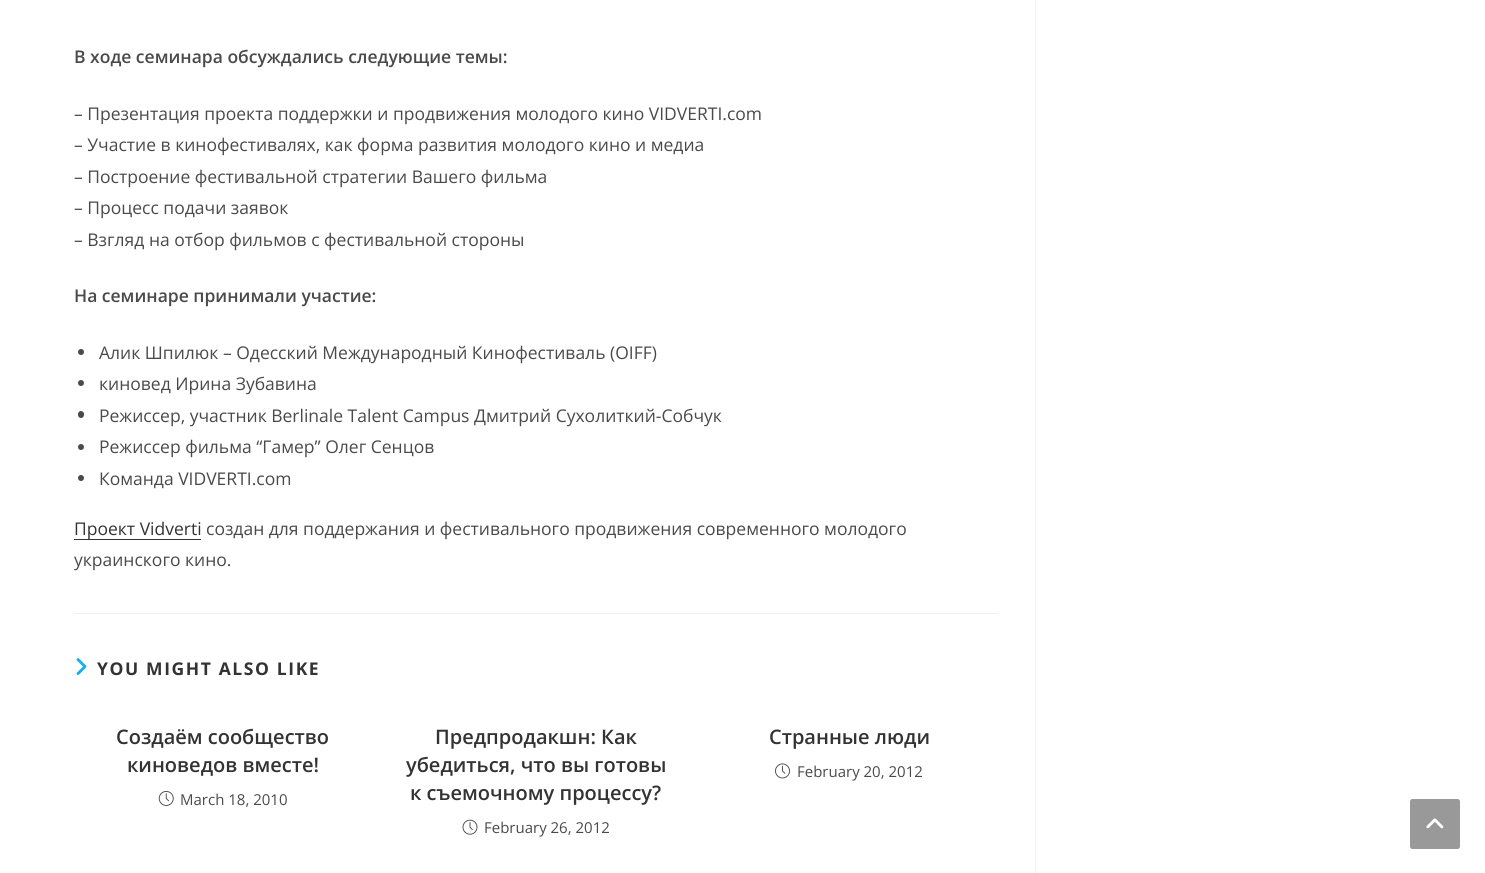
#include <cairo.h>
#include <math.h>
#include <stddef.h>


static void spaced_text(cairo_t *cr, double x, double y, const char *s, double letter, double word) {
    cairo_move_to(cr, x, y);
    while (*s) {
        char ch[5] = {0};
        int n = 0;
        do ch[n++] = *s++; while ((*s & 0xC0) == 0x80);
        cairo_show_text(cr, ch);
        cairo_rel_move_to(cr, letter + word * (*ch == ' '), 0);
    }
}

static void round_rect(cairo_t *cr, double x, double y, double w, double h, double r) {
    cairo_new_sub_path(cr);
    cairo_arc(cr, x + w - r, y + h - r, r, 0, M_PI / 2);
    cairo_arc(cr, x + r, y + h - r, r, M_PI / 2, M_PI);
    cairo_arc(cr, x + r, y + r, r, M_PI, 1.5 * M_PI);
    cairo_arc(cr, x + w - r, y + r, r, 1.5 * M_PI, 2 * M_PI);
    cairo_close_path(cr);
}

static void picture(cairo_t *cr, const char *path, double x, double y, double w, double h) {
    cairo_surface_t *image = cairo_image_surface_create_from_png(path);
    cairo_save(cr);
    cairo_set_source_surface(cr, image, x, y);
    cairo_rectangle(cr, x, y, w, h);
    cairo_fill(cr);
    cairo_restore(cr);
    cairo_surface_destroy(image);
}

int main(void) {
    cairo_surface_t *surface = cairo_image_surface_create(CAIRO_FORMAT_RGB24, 1485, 873);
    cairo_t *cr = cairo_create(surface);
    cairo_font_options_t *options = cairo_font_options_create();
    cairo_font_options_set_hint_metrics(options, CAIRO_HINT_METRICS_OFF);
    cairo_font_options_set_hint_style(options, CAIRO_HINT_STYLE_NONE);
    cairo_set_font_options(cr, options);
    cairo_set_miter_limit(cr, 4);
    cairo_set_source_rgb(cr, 1, 1, 1);
    cairo_paint(cr);
    cairo_set_source_rgb(cr, 0.945, 0.945, 0.945);
    cairo_rectangle(cr, 1035, 0, 1, 873);
    cairo_fill(cr);
    cairo_select_font_face(cr, "Open Sans SemiBold", CAIRO_FONT_SLANT_NORMAL, CAIRO_FONT_WEIGHT_NORMAL);
    cairo_set_font_size(cr, 17.5);
    cairo_set_source_rgb(cr, 0.29, 0.29, 0.29);
    cairo_move_to(cr, 74, 63);
    cairo_show_text(cr, "В ходе семинара обсуждались следующие темы:");
    cairo_select_font_face(cr, "Open Sans", CAIRO_FONT_SLANT_NORMAL, CAIRO_FONT_WEIGHT_NORMAL);
    cairo_move_to(cr, 74, 120);
    cairo_show_text(cr, "– Презентация проекта поддержки и продвижения молодого кино VIDVERTI.com");
    cairo_move_to(cr, 74, 151);
    cairo_show_text(cr, "– Участие в кинофестивалях, как форма развития молодого кино и медиа");
    cairo_move_to(cr, 74, 183);
    cairo_show_text(cr, "– Построение фестивальной стратегии Вашего фильма");
    cairo_move_to(cr, 74, 214);
    cairo_show_text(cr, "– Процесс подачи заявок");
    cairo_move_to(cr, 74, 246);
    cairo_show_text(cr, "– Взгляд на отбор фильмов с фестивальной стороны");
    cairo_select_font_face(cr, "Open Sans SemiBold", CAIRO_FONT_SLANT_NORMAL, CAIRO_FONT_WEIGHT_NORMAL);
    cairo_move_to(cr, 74, 302);
    cairo_show_text(cr, "На семинаре принимали участие:");
    cairo_new_path(cr);
    cairo_arc(cr, 81, 352, 3, 0, 2 * M_PI);
    cairo_fill(cr);
    cairo_select_font_face(cr, "Open Sans", CAIRO_FONT_SLANT_NORMAL, CAIRO_FONT_WEIGHT_NORMAL);
    cairo_move_to(cr, 99, 359);
    cairo_show_text(cr, "Алик Шпилюк – Одесский Международный Кинофестиваль (OIFF)");
    cairo_new_path(cr);
    cairo_arc(cr, 81, 383, 3, 0, 2 * M_PI);
    cairo_fill(cr);
    cairo_move_to(cr, 99, 390);
    cairo_show_text(cr, "киновед Ирина Зубавина");
    round_rect(cr, 78, 411, 6, 7, 3);
    cairo_fill(cr);
    cairo_move_to(cr, 99, 422);
    cairo_show_text(cr, "Режиссер, участник Berlinale Talent Campus Дмитрий Сухолиткий-Собчук");
    cairo_new_path(cr);
    cairo_arc(cr, 81, 447, 3, 0, 2 * M_PI);
    cairo_fill(cr);
    cairo_move_to(cr, 99, 453);
    cairo_show_text(cr, "Режиссер фильма “Гамер” Олег Сенцов");
    cairo_new_path(cr);
    cairo_arc(cr, 81, 478, 3, 0, 2 * M_PI);
    cairo_fill(cr);
    cairo_move_to(cr, 99, 485);
    cairo_show_text(cr, "Команда VIDVERTI.com");
    cairo_set_source_rgb(cr, 0.2, 0.2, 0.2);
    cairo_rectangle(cr, 74, 539, 127, 1);
    cairo_fill(cr);
    cairo_move_to(cr, 74, 535);
    cairo_show_text(cr, "Проект Vidverti");
    cairo_set_source_rgb(cr, 0.29, 0.29, 0.29);
    cairo_move_to(cr, 206, 535);
    cairo_show_text(cr, "создан для поддержания и фестивального продвижения современного молодого");
    cairo_move_to(cr, 74, 566);
    cairo_show_text(cr, "украинского кино.");
    cairo_set_source_rgb(cr, 0.945, 0.945, 0.945);
    cairo_rectangle(cr, 74, 613, 924, 1);
    cairo_fill(cr);
    picture(cr, "img1.png", 76, 658, 11, 17);
    cairo_select_font_face(cr, "Open Sans", CAIRO_FONT_SLANT_NORMAL, CAIRO_FONT_WEIGHT_BOLD);
    cairo_set_source_rgb(cr, 0.2, 0.2, 0.2);
    spaced_text(cr, 97, 675, "YOU MIGHT ALSO LIKE", 1.6, 0);
    cairo_select_font_face(cr, "Open Sans SemiBold", CAIRO_FONT_SLANT_NORMAL, CAIRO_FONT_WEIGHT_NORMAL);
    cairo_set_font_size(cr, 20);
    cairo_move_to(cr, 116, 744);
    cairo_show_text(cr, "Создаём сообщество");
    cairo_move_to(cr, 127, 772);
    cairo_show_text(cr, "киноведов вместе!");
    picture(cr, "img2.png", 158, 790, 16, 16);
    cairo_select_font_face(cr, "Open Sans", CAIRO_FONT_SLANT_NORMAL, CAIRO_FONT_WEIGHT_NORMAL);
    cairo_set_font_size(cr, 15);
    cairo_set_source_rgb(cr, 0.29, 0.29, 0.29);
    cairo_move_to(cr, 180, 805);
    cairo_show_text(cr, "March 18, 2010");
    cairo_select_font_face(cr, "Open Sans SemiBold", CAIRO_FONT_SLANT_NORMAL, CAIRO_FONT_WEIGHT_NORMAL);
    cairo_set_font_size(cr, 20);
    cairo_set_source_rgb(cr, 0.2, 0.2, 0.2);
    cairo_move_to(cr, 435, 744);
    cairo_show_text(cr, "Предпродакшн: Как");
    cairo_move_to(cr, 406, 772);
    cairo_show_text(cr, "убедиться, что вы готовы");
    cairo_move_to(cr, 410, 800);
    cairo_show_text(cr, "к съемочному процессу?");
    picture(cr, "img3.png", 462, 819, 16, 16);
    cairo_select_font_face(cr, "Open Sans", CAIRO_FONT_SLANT_NORMAL, CAIRO_FONT_WEIGHT_NORMAL);
    cairo_set_font_size(cr, 15);
    cairo_set_source_rgb(cr, 0.29, 0.29, 0.29);
    cairo_move_to(cr, 484, 833);
    cairo_show_text(cr, "February 26, 2012");
    cairo_select_font_face(cr, "Open Sans SemiBold", CAIRO_FONT_SLANT_NORMAL, CAIRO_FONT_WEIGHT_NORMAL);
    cairo_set_font_size(cr, 20);
    cairo_set_source_rgb(cr, 0.2, 0.2, 0.2);
    cairo_move_to(cr, 769, 744);
    cairo_show_text(cr, "Странные люди");
    picture(cr, "img4.png", 775, 763, 15, 16);
    cairo_select_font_face(cr, "Open Sans", CAIRO_FONT_SLANT_NORMAL, CAIRO_FONT_WEIGHT_NORMAL);
    cairo_set_font_size(cr, 15);
    cairo_set_source_rgb(cr, 0.29, 0.29, 0.29);
    cairo_move_to(cr, 797, 777);
    cairo_show_text(cr, "February 20, 2012");
    cairo_set_source_rgb(cr, 0.6, 0.6, 0.6);
    round_rect(cr, 1410, 799, 50, 50, 2.5);
    cairo_fill(cr);
    picture(cr, "img5.png", 1426, 818, 18, 11);
    cairo_surface_write_to_png(surface, "page.png");
    cairo_font_options_destroy(options);
    cairo_destroy(cr);
    cairo_surface_destroy(surface);
    return 0;
}
